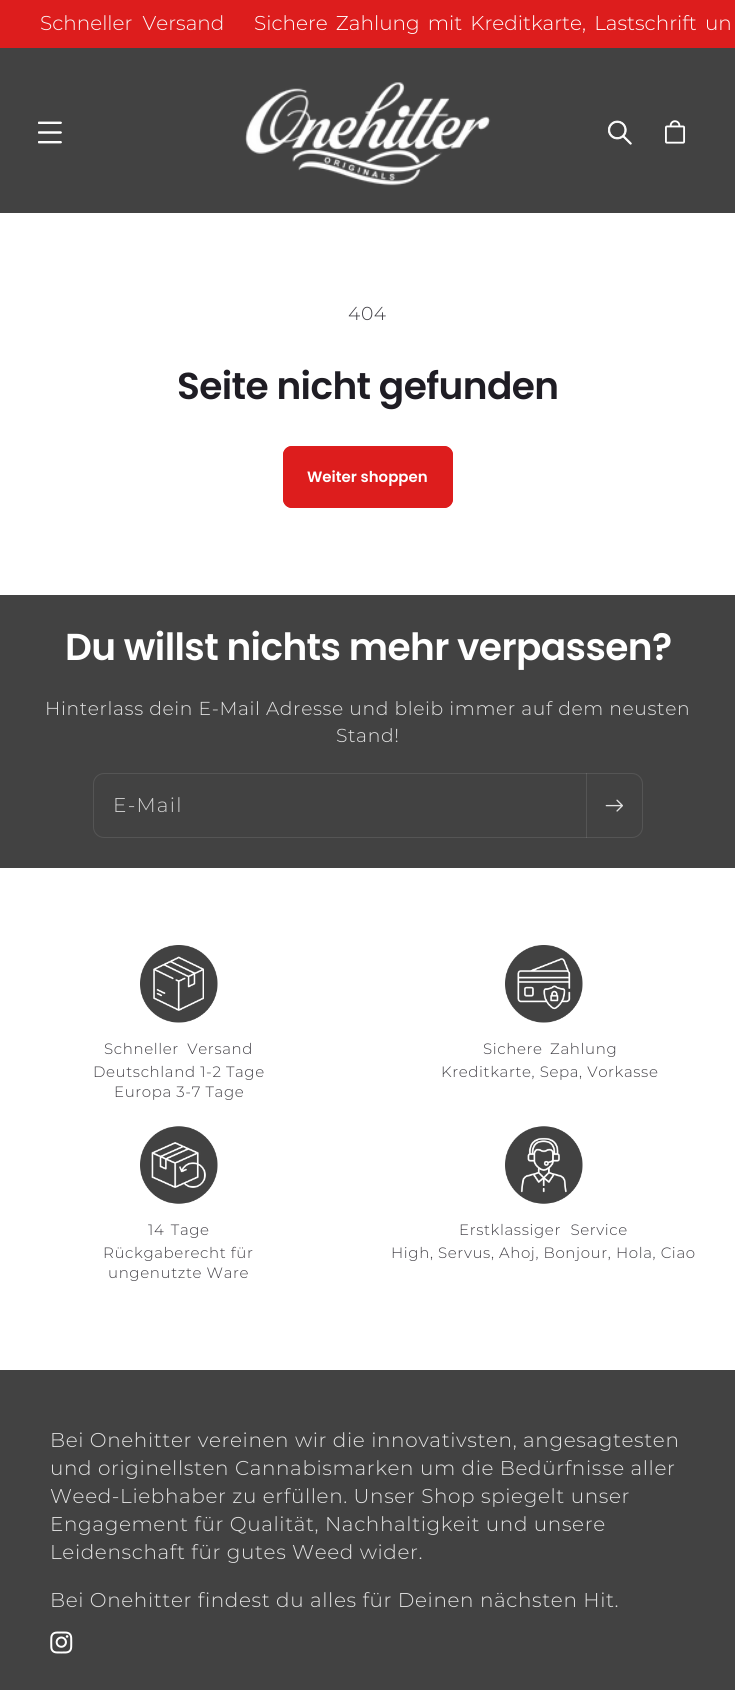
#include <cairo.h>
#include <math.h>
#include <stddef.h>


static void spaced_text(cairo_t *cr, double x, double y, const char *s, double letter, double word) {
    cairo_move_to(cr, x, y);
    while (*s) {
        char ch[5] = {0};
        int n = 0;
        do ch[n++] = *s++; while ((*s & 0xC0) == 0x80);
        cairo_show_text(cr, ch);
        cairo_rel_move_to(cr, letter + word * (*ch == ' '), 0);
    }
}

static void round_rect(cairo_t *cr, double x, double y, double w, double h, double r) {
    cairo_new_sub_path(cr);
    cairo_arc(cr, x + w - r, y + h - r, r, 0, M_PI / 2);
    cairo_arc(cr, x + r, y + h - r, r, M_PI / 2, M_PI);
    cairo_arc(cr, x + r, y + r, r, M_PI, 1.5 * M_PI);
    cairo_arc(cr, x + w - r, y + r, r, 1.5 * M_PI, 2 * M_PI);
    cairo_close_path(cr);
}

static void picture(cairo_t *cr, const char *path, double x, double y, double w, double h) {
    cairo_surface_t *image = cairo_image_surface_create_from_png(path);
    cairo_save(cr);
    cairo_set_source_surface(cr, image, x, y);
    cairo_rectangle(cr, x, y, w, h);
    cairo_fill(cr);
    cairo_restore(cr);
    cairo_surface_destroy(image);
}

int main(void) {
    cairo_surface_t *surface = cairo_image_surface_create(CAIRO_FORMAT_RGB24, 735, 1690);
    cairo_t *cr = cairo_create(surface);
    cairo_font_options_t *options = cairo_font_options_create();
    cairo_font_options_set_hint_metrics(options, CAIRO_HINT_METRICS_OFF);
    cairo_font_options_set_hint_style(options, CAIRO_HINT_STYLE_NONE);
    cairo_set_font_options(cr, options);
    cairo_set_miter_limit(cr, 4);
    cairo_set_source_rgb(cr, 1, 1, 1);
    cairo_paint(cr);
    cairo_set_source_rgb(cr, 0.867, 0.114, 0.114);
    cairo_rectangle(cr, 0, 0, 735, 48);
    cairo_fill(cr);
    cairo_select_font_face(cr, "Montserrat Light", CAIRO_FONT_SLANT_NORMAL, CAIRO_FONT_WEIGHT_NORMAL);
    cairo_set_font_size(cr, 20);
    cairo_set_source_rgb(cr, 0.976, 0.976, 0.976);
    spaced_text(cr, 40, 30, "Schneller Versand", 0, 5);
    cairo_set_source_rgb(cr, 1, 1, 1);
    spaced_text(cr, 254, 30, "Sichere Zahlung mit Kreditkarte, Lastschrift un", 0, 3);
    cairo_set_source_rgb(cr, 0.259, 0.259, 0.259);
    cairo_rectangle(cr, 0, 48, 735, 165);
    cairo_fill(cr);
    picture(cr, "img1.png", 38, 121, 24, 23);
    picture(cr, "img2.png", 245, 82, 246, 104);
    picture(cr, "img3.png", 608, 120, 24, 25);
    picture(cr, "img4.png", 665, 120, 21, 24);
    cairo_set_font_size(cr, 18.75);
    cairo_set_source_rgb(cr, 0.255, 0.247, 0.271);
    spaced_text(cr, 348, 320, "404", 0.62, 0);
    cairo_select_font_face(cr, "Poppins SemiBold", CAIRO_FONT_SLANT_NORMAL, CAIRO_FONT_WEIGHT_NORMAL);
    cairo_set_font_size(cr, 37.5);
    cairo_set_source_rgb(cr, 0.122, 0.114, 0.141);
    spaced_text(cr, 177, 399, "Seite nicht gefunden", -0.6, 0);
    cairo_set_source_rgb(cr, 0.867, 0.114, 0.114);
    round_rect(cr, 283, 446, 170, 62, 9);
    cairo_fill(cr);
    round_rect(cr, 283.5, 446.5, 169, 61, 8.5);
    cairo_set_line_width(cr, 1);
    cairo_stroke(cr);
    cairo_set_font_size(cr, 15);
    cairo_set_source_rgb(cr, 1, 1, 1);
    cairo_move_to(cr, 307, 482);
    cairo_show_text(cr, "Weiter shoppen");
    cairo_set_source_rgb(cr, 0.259, 0.259, 0.259);
    cairo_rectangle(cr, 0, 595, 735, 273);
    cairo_fill(cr);
    cairo_set_font_size(cr, 37.5);
    cairo_set_source_rgb(cr, 1, 1, 1);
    spaced_text(cr, 65, 660, "Du willst nichts mehr verpassen?", -0.6, 0);
    cairo_select_font_face(cr, "Montserrat Light", CAIRO_FONT_SLANT_NORMAL, CAIRO_FONT_WEIGHT_NORMAL);
    cairo_set_font_size(cr, 18.75);
    cairo_set_source_rgb(cr, 0.89, 0.89, 0.89);
    spaced_text(cr, 45, 715, "Hinterlass dein E-Mail Adresse und bleib immer auf dem neusten", 0.62, 0);
    spaced_text(cr, 336, 742, "Stand!", 0.62, 0);
    round_rect(cr, 93.5, 773.5, 549, 64, 10.5);
    cairo_set_source_rgb(cr, 0.333, 0.333, 0.333);
    cairo_stroke(cr);
    cairo_set_font_size(cr, 20);
    cairo_set_source_rgb(cr, 0.816, 0.816, 0.816);
    spaced_text(cr, 113, 812, "E-Mail", 1.25, 0);
    cairo_set_source_rgba(cr, 1, 1, 1, 0.1);
    cairo_rectangle(cr, 586, 773, 1, 65);
    cairo_fill(cr);
    picture(cr, "img5.png", 605, 799, 18, 13);
    picture(cr, "img6.png", 140, 945, 78, 78);
    cairo_set_font_size(cr, 15);
    cairo_set_source_rgb(cr, 0.255, 0.247, 0.271);
    spaced_text(cr, 104, 1054, "Schneller Versand", 0.62, 4);
    spaced_text(cr, 93, 1077, "Deutschland 1-2 Tage", 0.62, 0);
    spaced_text(cr, 114, 1097, "Europa 3-7 Tage", 0.62, 0);
    picture(cr, "img7.png", 505, 945, 78, 78);
    spaced_text(cr, 483, 1054, "Sichere Zahlung", 0.62, 3);
    spaced_text(cr, 441, 1077, "Kreditkarte, Sepa, Vorkasse", 0.62, 0);
    picture(cr, "img8.png", 140, 1126, 78, 78);
    spaced_text(cr, 148, 1235, "14 Tage", 0.62, 2);
    spaced_text(cr, 103, 1258, "Rückgaberecht für", 0.62, 0);
    spaced_text(cr, 108, 1278, "ungenutzte Ware", 0.62, 0);
    picture(cr, "img9.png", 505, 1126, 78, 78);
    spaced_text(cr, 459, 1235, "Erstklassiger Service", 0.62, 5);
    spaced_text(cr, 391, 1258, "High, Servus, Ahoj, Bonjour, Hola, Ciao", 0.62, 0);
    cairo_set_source_rgb(cr, 0.259, 0.259, 0.259);
    cairo_rectangle(cr, 0, 1370, 735, 320);
    cairo_fill(cr);
    cairo_set_font_size(cr, 20);
    cairo_set_source_rgb(cr, 0.89, 0.89, 0.89);
    spaced_text(cr, 50, 1447, "Bei Onehitter vereinen wir die innovativsten, angesagtesten", 0.62, 0);
    spaced_text(cr, 50, 1475, "und originellsten Cannabismarken um die Bedürfnisse aller", 0.62, 0);
    spaced_text(cr, 50, 1503, "Weed-Liebhaber zu erfüllen. Unser Shop spiegelt unser", 0.62, 0);
    spaced_text(cr, 50, 1531, "Engagement für Qualität, Nachhaltigkeit und unsere", 0.62, 0);
    spaced_text(cr, 50, 1559, "Leidenschaft für gutes Weed wider.", 0.62, 0);
    spaced_text(cr, 50, 1607, "Bei Onehitter findest du alles für Deinen nächsten Hit.", 0.62, 0);
    picture(cr, "img10.png", 50, 1631, 23, 23);
    cairo_surface_write_to_png(surface, "page.png");
    cairo_font_options_destroy(options);
    cairo_destroy(cr);
    cairo_surface_destroy(surface);
    return 0;
}
